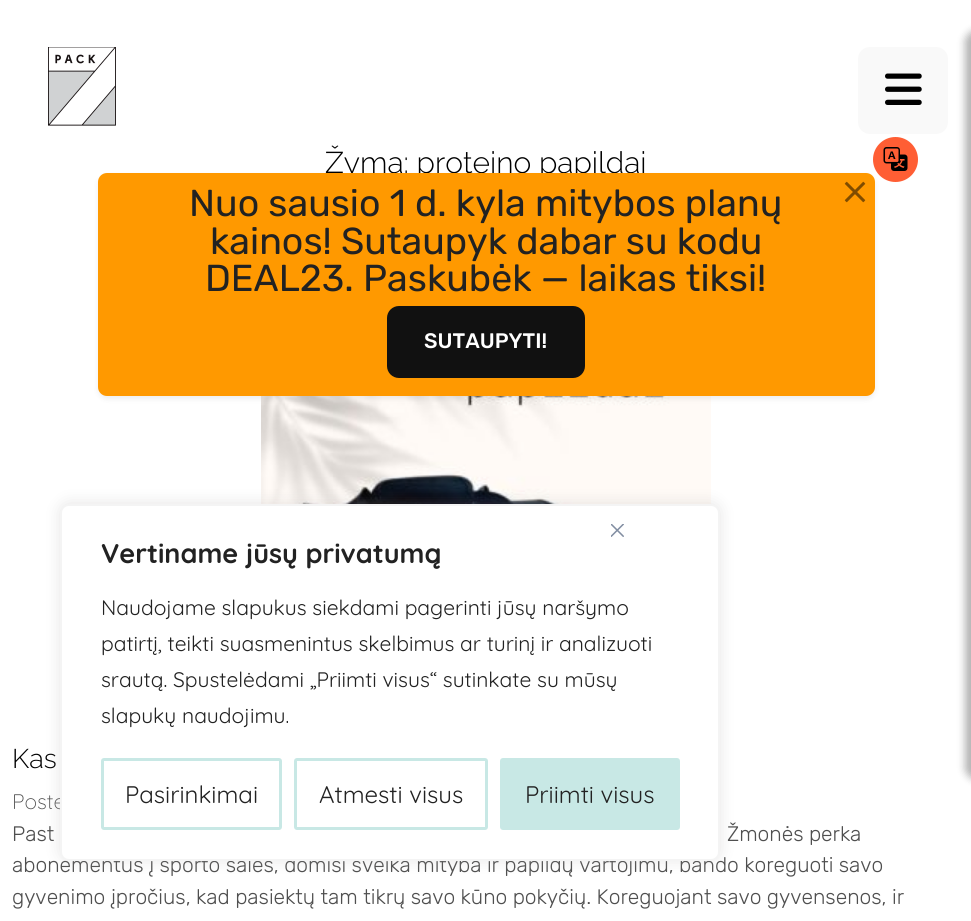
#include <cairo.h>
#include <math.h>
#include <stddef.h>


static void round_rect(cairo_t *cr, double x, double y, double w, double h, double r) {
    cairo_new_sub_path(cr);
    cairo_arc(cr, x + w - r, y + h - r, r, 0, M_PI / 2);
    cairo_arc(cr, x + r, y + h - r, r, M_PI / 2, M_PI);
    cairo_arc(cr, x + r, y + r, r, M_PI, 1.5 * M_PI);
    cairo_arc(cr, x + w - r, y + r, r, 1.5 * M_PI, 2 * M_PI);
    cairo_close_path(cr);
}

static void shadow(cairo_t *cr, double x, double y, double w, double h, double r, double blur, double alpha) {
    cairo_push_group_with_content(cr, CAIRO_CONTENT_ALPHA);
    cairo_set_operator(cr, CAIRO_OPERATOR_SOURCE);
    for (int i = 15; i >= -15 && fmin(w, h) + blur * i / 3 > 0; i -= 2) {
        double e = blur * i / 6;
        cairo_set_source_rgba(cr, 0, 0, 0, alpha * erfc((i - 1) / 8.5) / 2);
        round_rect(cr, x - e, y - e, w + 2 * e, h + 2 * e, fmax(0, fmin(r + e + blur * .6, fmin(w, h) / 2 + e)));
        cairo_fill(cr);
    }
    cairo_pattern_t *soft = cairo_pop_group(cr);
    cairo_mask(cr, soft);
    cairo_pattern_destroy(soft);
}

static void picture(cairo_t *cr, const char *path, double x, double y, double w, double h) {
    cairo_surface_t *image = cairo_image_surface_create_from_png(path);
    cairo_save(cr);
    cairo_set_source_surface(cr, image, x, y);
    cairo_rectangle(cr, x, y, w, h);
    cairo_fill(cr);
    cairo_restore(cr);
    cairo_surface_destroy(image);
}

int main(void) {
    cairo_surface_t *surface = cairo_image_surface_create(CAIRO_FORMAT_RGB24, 971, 921);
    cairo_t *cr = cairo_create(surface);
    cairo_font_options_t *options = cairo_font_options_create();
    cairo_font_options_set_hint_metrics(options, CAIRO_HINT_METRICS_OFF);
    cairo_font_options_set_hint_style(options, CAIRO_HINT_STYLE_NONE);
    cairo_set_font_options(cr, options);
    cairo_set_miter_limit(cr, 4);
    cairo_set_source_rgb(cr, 1, 1, 1);
    cairo_paint(cr);
    cairo_select_font_face(cr, "Raleway Light", CAIRO_FONT_SLANT_NORMAL, CAIRO_FONT_WEIGHT_NORMAL);
    cairo_set_font_size(cr, 30);
    cairo_set_source_rgb(cr, 0, 0, 0);
    cairo_move_to(cr, 325, 173);
    cairo_show_text(cr, "Žyma: proteino papildai");
    picture(cr, "img1.png", 261, 396, 450, 108);
    cairo_set_font_size(cr, 27);
    cairo_move_to(cr, 12, 768);
    cairo_show_text(cr, "Kas");
    cairo_select_font_face(cr, "Quicksand Light", CAIRO_FONT_SLANT_NORMAL, CAIRO_FONT_WEIGHT_NORMAL);
    cairo_set_font_size(cr, 21);
    cairo_set_source_rgb(cr, 0.31, 0.31, 0.31);
    cairo_move_to(cr, 12, 809);
    cairo_show_text(cr, "Poste");
    cairo_select_font_face(cr, "Rubik Light", CAIRO_FONT_SLANT_NORMAL, CAIRO_FONT_WEIGHT_NORMAL);
    cairo_move_to(cr, 12, 841);
    cairo_show_text(cr, "Past");
    cairo_move_to(cr, 727, 841);
    cairo_show_text(cr, "Žmonės perka");
    cairo_move_to(cr, 12, 872);
    cairo_show_text(cr, "abonementus į sporto sales, domisi sveika mityba ir papildų vartojimu, bando koreguoti savo");
    cairo_move_to(cr, 12, 904);
    cairo_show_text(cr, "gyvenimo įpročius, kad pasiektų tam tikrų savo kūno pokyčių. Koreguojant savo gyvensenos, ir");
    picture(cr, "img2.png", 48, 47, 68, 79);
    cairo_set_source_rgb(cr, 0.973, 0.973, 0.973);
    round_rect(cr, 858, 47, 90, 87, 12);
    cairo_fill(cr);
    picture(cr, "img3.png", 885, 73, 37, 32);
    cairo_set_source_rgb(cr, 0, 0, 0);
    shadow(cr, 965, 30, 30, 750, 12, 4, 0.3);
    shadow(cr, 98, 176, 777, 223, 9, 3, 0.07);
    cairo_set_source_rgb(cr, 1, 0.6, 0);
    round_rect(cr, 98, 173, 777, 223, 9);
    cairo_fill(cr);
    cairo_set_source_rgb(cr, 1, 0.369, 0.204);
    cairo_arc(cr, 895.5, 159.5, 21.5, 0, 2 * M_PI);
    cairo_fill_preserve(cr);
    cairo_stroke(cr);
    picture(cr, "img4.png", 883, 147, 25, 24);
    cairo_select_font_face(cr, "Rubik", CAIRO_FONT_SLANT_NORMAL, CAIRO_FONT_WEIGHT_NORMAL);
    cairo_set_font_size(cr, 37.5);
    cairo_set_source_rgb(cr, 0.133, 0.133, 0.133);
    cairo_move_to(cr, 189, 216);
    cairo_show_text(cr, "Nuo sausio 1 d. kyla mitybos planų");
    cairo_move_to(cr, 210, 254);
    cairo_show_text(cr, "kainos! Sutaupyk dabar su kodu");
    cairo_move_to(cr, 205, 291);
    cairo_show_text(cr, "DEAL23. Paskubėk — laikas tiksi!");
    picture(cr, "img5.png", 844, 181, 22, 22);
    cairo_set_source_rgb(cr, 0.067, 0.067, 0.067);
    round_rect(cr, 388, 307, 196, 70, 11);
    cairo_fill_preserve(cr);
    cairo_stroke(cr);
    cairo_select_font_face(cr, "Rubik Medium", CAIRO_FONT_SLANT_NORMAL, CAIRO_FONT_WEIGHT_NORMAL);
    cairo_set_font_size(cr, 21);
    cairo_set_source_rgb(cr, 1, 1, 1);
    cairo_move_to(cr, 424, 348);
    cairo_show_text(cr, "SUTAUPYTI!");
    cairo_set_source_rgb(cr, 0.675, 0.671, 0.671);
    shadow(cr, 60, 503, 660, 357, 9, 7.5, 0.3);
    cairo_set_source_rgb(cr, 1, 1, 1);
    round_rect(cr, 61, 505, 658, 355, 8);
    cairo_fill_preserve(cr);
    cairo_set_source_rgb(cr, 0.957, 0.957, 0.957);
    cairo_stroke(cr);
    picture(cr, "img6.png", 611, 524, 13, 13);
    cairo_select_font_face(cr, "Quicksand", CAIRO_FONT_SLANT_NORMAL, CAIRO_FONT_WEIGHT_BOLD);
    cairo_set_font_size(cr, 27);
    cairo_set_source_rgb(cr, 0.133, 0.133, 0.133);
    cairo_move_to(cr, 101, 563);
    cairo_show_text(cr, "Vertiname jūsų privatumą");
    cairo_select_font_face(cr, "Quicksand", CAIRO_FONT_SLANT_NORMAL, CAIRO_FONT_WEIGHT_NORMAL);
    cairo_set_font_size(cr, 21);
    cairo_move_to(cr, 101, 615);
    cairo_show_text(cr, "Naudojame slapukus siekdami pagerinti jūsų naršymo");
    cairo_move_to(cr, 101, 651);
    cairo_show_text(cr, "patirtį, teikti suasmenintus skelbimus ar turinį ir analizuoti");
    cairo_move_to(cr, 101, 687);
    cairo_show_text(cr, "srautą. Spustelėdami „Priimti visus“ sutinkate su mūsų");
    cairo_move_to(cr, 101, 723);
    cairo_show_text(cr, "slapukų naudojimu.");
    round_rect(cr, 102.5, 759.5, 178, 69, 1.5);
    cairo_set_source_rgb(cr, 0.784, 0.91, 0.898);
    cairo_set_line_width(cr, 3);
    cairo_stroke(cr);
    cairo_set_font_size(cr, 24);
    cairo_set_source_rgb(cr, 0.133, 0.133, 0.133);
    cairo_move_to(cr, 125, 803);
    cairo_show_text(cr, "Pasirinkimai");
    round_rect(cr, 295.5, 759.5, 191, 69, 1.5);
    cairo_set_source_rgb(cr, 0.784, 0.91, 0.898);
    cairo_stroke(cr);
    cairo_set_source_rgb(cr, 0.133, 0.133, 0.133);
    cairo_move_to(cr, 319, 803);
    cairo_show_text(cr, "Atmesti visus");
    cairo_set_source_rgb(cr, 0.784, 0.91, 0.898);
    round_rect(cr, 501.5, 759.5, 177, 69, 1.5);
    cairo_fill_preserve(cr);
    cairo_stroke(cr);
    cairo_set_source_rgb(cr, 0.133, 0.133, 0.133);
    cairo_move_to(cr, 525, 803);
    cairo_show_text(cr, "Priimti visus");
    cairo_surface_write_to_png(surface, "page.png");
    cairo_font_options_destroy(options);
    cairo_destroy(cr);
    cairo_surface_destroy(surface);
    return 0;
}
